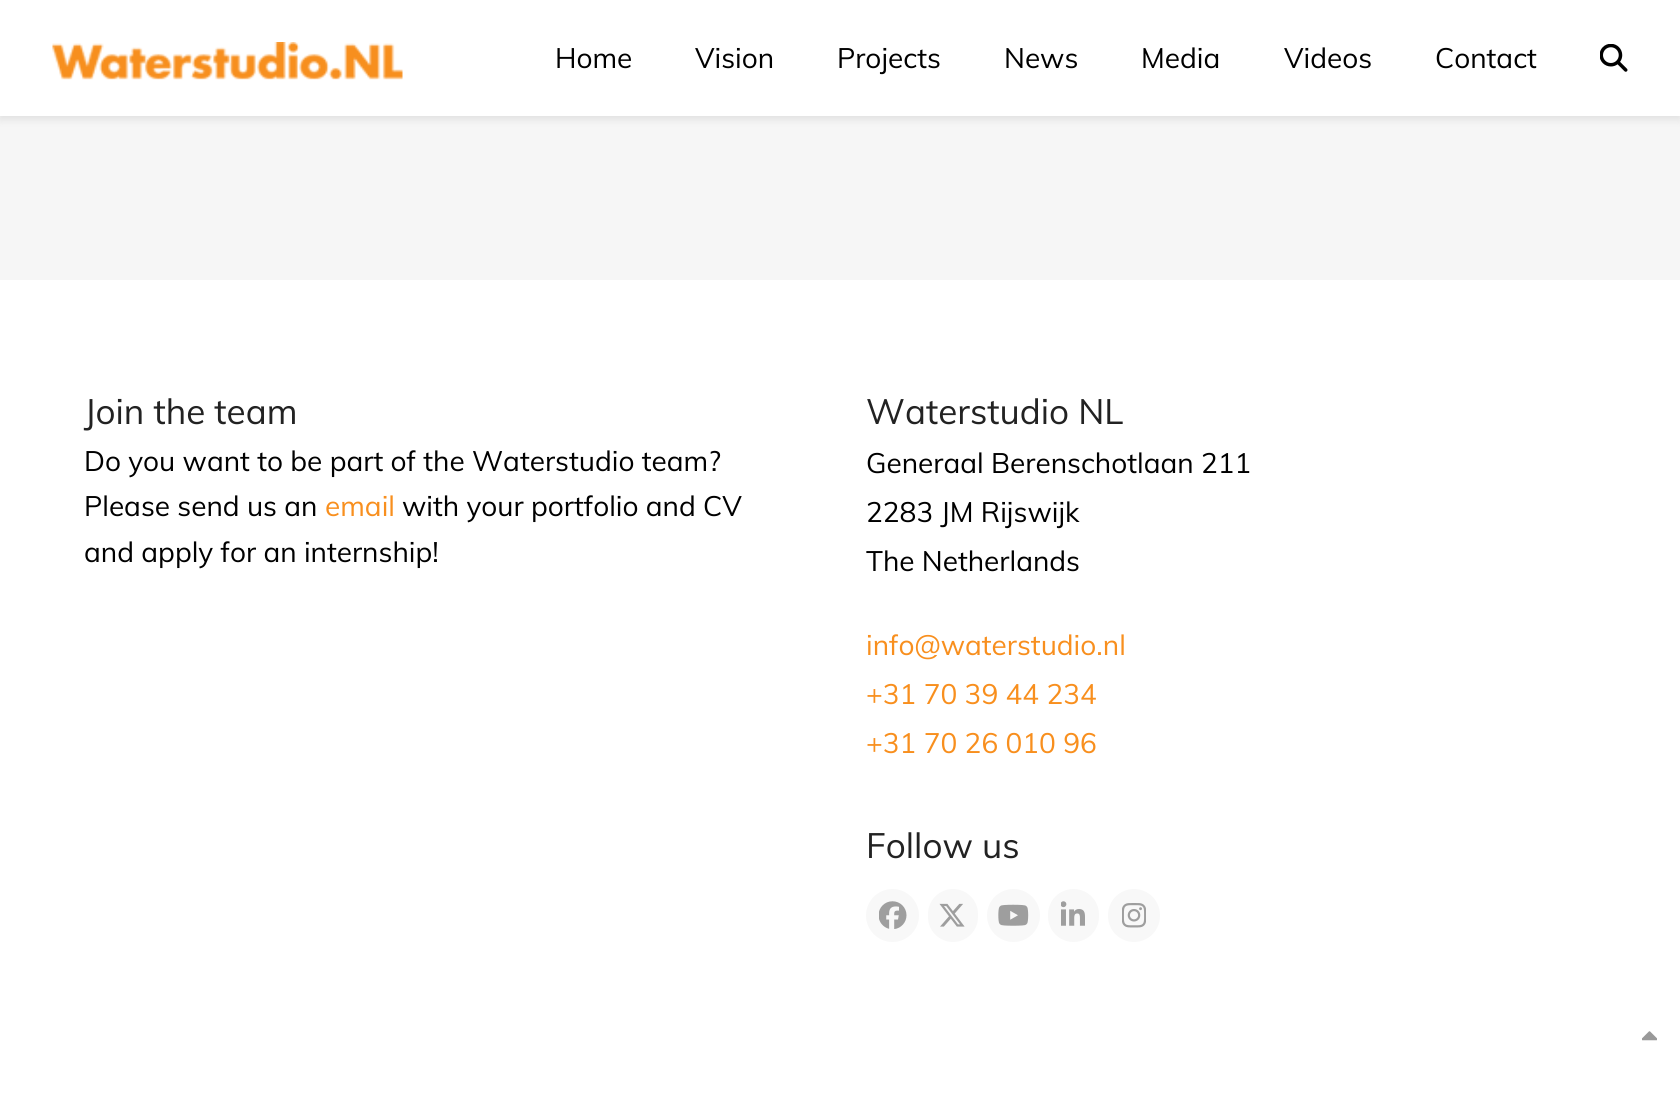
#include <cairo.h>
#include <math.h>
#include <stddef.h>


static void round_rect(cairo_t *cr, double x, double y, double w, double h, double r) {
    cairo_new_sub_path(cr);
    cairo_arc(cr, x + w - r, y + h - r, r, 0, M_PI / 2);
    cairo_arc(cr, x + r, y + h - r, r, M_PI / 2, M_PI);
    cairo_arc(cr, x + r, y + r, r, M_PI, 1.5 * M_PI);
    cairo_arc(cr, x + w - r, y + r, r, 1.5 * M_PI, 2 * M_PI);
    cairo_close_path(cr);
}

static void shadow(cairo_t *cr, double x, double y, double w, double h, double r, double blur, double alpha) {
    cairo_push_group_with_content(cr, CAIRO_CONTENT_ALPHA);
    cairo_set_operator(cr, CAIRO_OPERATOR_SOURCE);
    for (int i = 15; i >= -15 && fmin(w, h) + blur * i / 3 > 0; i -= 2) {
        double e = blur * i / 6;
        cairo_set_source_rgba(cr, 0, 0, 0, alpha * erfc((i - 1) / 8.5) / 2);
        round_rect(cr, x - e, y - e, w + 2 * e, h + 2 * e, fmax(0, fmin(r + e + blur * .6, fmin(w, h) / 2 + e)));
        cairo_fill(cr);
    }
    cairo_pattern_t *soft = cairo_pop_group(cr);
    cairo_mask(cr, soft);
    cairo_pattern_destroy(soft);
}

static void picture(cairo_t *cr, const char *path, double x, double y, double w, double h) {
    cairo_surface_t *image = cairo_image_surface_create_from_png(path);
    cairo_save(cr);
    cairo_set_source_surface(cr, image, x, y);
    cairo_rectangle(cr, x, y, w, h);
    cairo_fill(cr);
    cairo_restore(cr);
    cairo_surface_destroy(image);
}

int main(void) {
    cairo_surface_t *surface = cairo_image_surface_create(CAIRO_FORMAT_RGB24, 1680, 1107);
    cairo_t *cr = cairo_create(surface);
    cairo_font_options_t *options = cairo_font_options_create();
    cairo_font_options_set_hint_metrics(options, CAIRO_HINT_METRICS_OFF);
    cairo_font_options_set_hint_style(options, CAIRO_HINT_STYLE_NONE);
    cairo_set_font_options(cr, options);
    cairo_set_miter_limit(cr, 4);
    cairo_set_source_rgb(cr, 0.961, 0.961, 0.961);
    cairo_paint(cr);
    cairo_set_source_rgb(cr, 0, 0, 0);
    shadow(cr, 0, 4, 1680, 115, 0, 4.5, 0.1);
    cairo_set_source_rgb(cr, 1, 1, 1);
    cairo_rectangle(cr, 0, 0, 1680, 116);
    cairo_fill(cr);
    picture(cr, "img1.png", 52, 42, 351, 38);
    cairo_select_font_face(cr, "Muli", CAIRO_FONT_SLANT_NORMAL, CAIRO_FONT_WEIGHT_NORMAL);
    cairo_set_font_size(cr, 28);
    cairo_set_source_rgb(cr, 0, 0, 0);
    cairo_move_to(cr, 555, 68);
    cairo_show_text(cr, "Home");
    cairo_move_to(cr, 695, 68);
    cairo_show_text(cr, "Vision");
    cairo_move_to(cr, 837, 68);
    cairo_show_text(cr, "Projects");
    cairo_move_to(cr, 1004, 68);
    cairo_show_text(cr, "News");
    cairo_move_to(cr, 1141, 68);
    cairo_show_text(cr, "Media");
    cairo_move_to(cr, 1284, 68);
    cairo_show_text(cr, "Videos");
    cairo_move_to(cr, 1435, 68);
    cairo_show_text(cr, "Contact");
    picture(cr, "img2.png", 1600, 44, 28, 28);
    cairo_set_source_rgb(cr, 1, 1, 1);
    cairo_rectangle(cr, 0, 280, 1680, 827);
    cairo_fill(cr);
    cairo_set_font_size(cr, 35);
    cairo_set_source_rgb(cr, 0.133, 0.133, 0.133);
    cairo_move_to(cr, 84, 424);
    cairo_show_text(cr, "Join the team");
    cairo_set_font_size(cr, 28);
    cairo_set_source_rgb(cr, 0, 0, 0);
    cairo_move_to(cr, 84, 471);
    cairo_show_text(cr, "Do you want to be part of the Waterstudio team?");
    cairo_move_to(cr, 84, 516);
    cairo_show_text(cr, "Please send us an");
    cairo_set_source_rgb(cr, 0.969, 0.561, 0.118);
    cairo_move_to(cr, 325, 516);
    cairo_show_text(cr, "email");
    cairo_set_source_rgb(cr, 0, 0, 0);
    cairo_move_to(cr, 402, 516);
    cairo_show_text(cr, "with your portfolio and CV");
    cairo_move_to(cr, 84, 562);
    cairo_show_text(cr, "and apply for an internship!");
    cairo_set_font_size(cr, 35);
    cairo_set_source_rgb(cr, 0.133, 0.133, 0.133);
    cairo_move_to(cr, 866, 424);
    cairo_show_text(cr, "Waterstudio NL");
    cairo_set_font_size(cr, 28);
    cairo_set_source_rgb(cr, 0, 0, 0);
    cairo_move_to(cr, 866, 473);
    cairo_show_text(cr, "Generaal Berenschotlaan 211");
    cairo_move_to(cr, 866, 522);
    cairo_show_text(cr, "2283 JM Rijswijk");
    cairo_move_to(cr, 866, 571);
    cairo_show_text(cr, "The Netherlands");
    cairo_set_source_rgb(cr, 0.969, 0.561, 0.118);
    cairo_move_to(cr, 866, 655);
    cairo_show_text(cr, "info@waterstudio.nl");
    cairo_move_to(cr, 866, 704);
    cairo_show_text(cr, "+31 70 39 44 234");
    cairo_move_to(cr, 866, 753);
    cairo_show_text(cr, "+31 70 26 010 96");
    cairo_set_font_size(cr, 35);
    cairo_set_source_rgb(cr, 0.133, 0.133, 0.133);
    cairo_move_to(cr, 866, 858);
    cairo_show_text(cr, "Follow us");
    cairo_set_source_rgb(cr, 0.969, 0.969, 0.969);
    cairo_new_path(cr);
    cairo_arc(cr, 892.5, 915.5, 26.5, 0, 2 * M_PI);
    cairo_fill(cr);
    picture(cr, "img3.png", 879, 901, 28, 28);
    round_rect(cr, 928, 889, 50, 53, 25);
    cairo_fill(cr);
    picture(cr, "img4.png", 939, 903, 26, 24);
    cairo_arc(cr, 1013.5, 915.5, 26.5, 0, 2 * M_PI);
    cairo_fill(cr);
    picture(cr, "img5.png", 998, 904, 31, 22);
    round_rect(cr, 1048, 889, 51, 53, 25.5);
    cairo_fill(cr);
    picture(cr, "img6.png", 1061, 901, 24, 25);
    round_rect(cr, 1108, 889, 52, 53, 26);
    cairo_fill(cr);
    picture(cr, "img7.png", 1122, 903, 24, 25);
    picture(cr, "img8.png", 1642, 1031, 15, 10);
    cairo_surface_write_to_png(surface, "page.png");
    cairo_font_options_destroy(options);
    cairo_destroy(cr);
    cairo_surface_destroy(surface);
    return 0;
}
